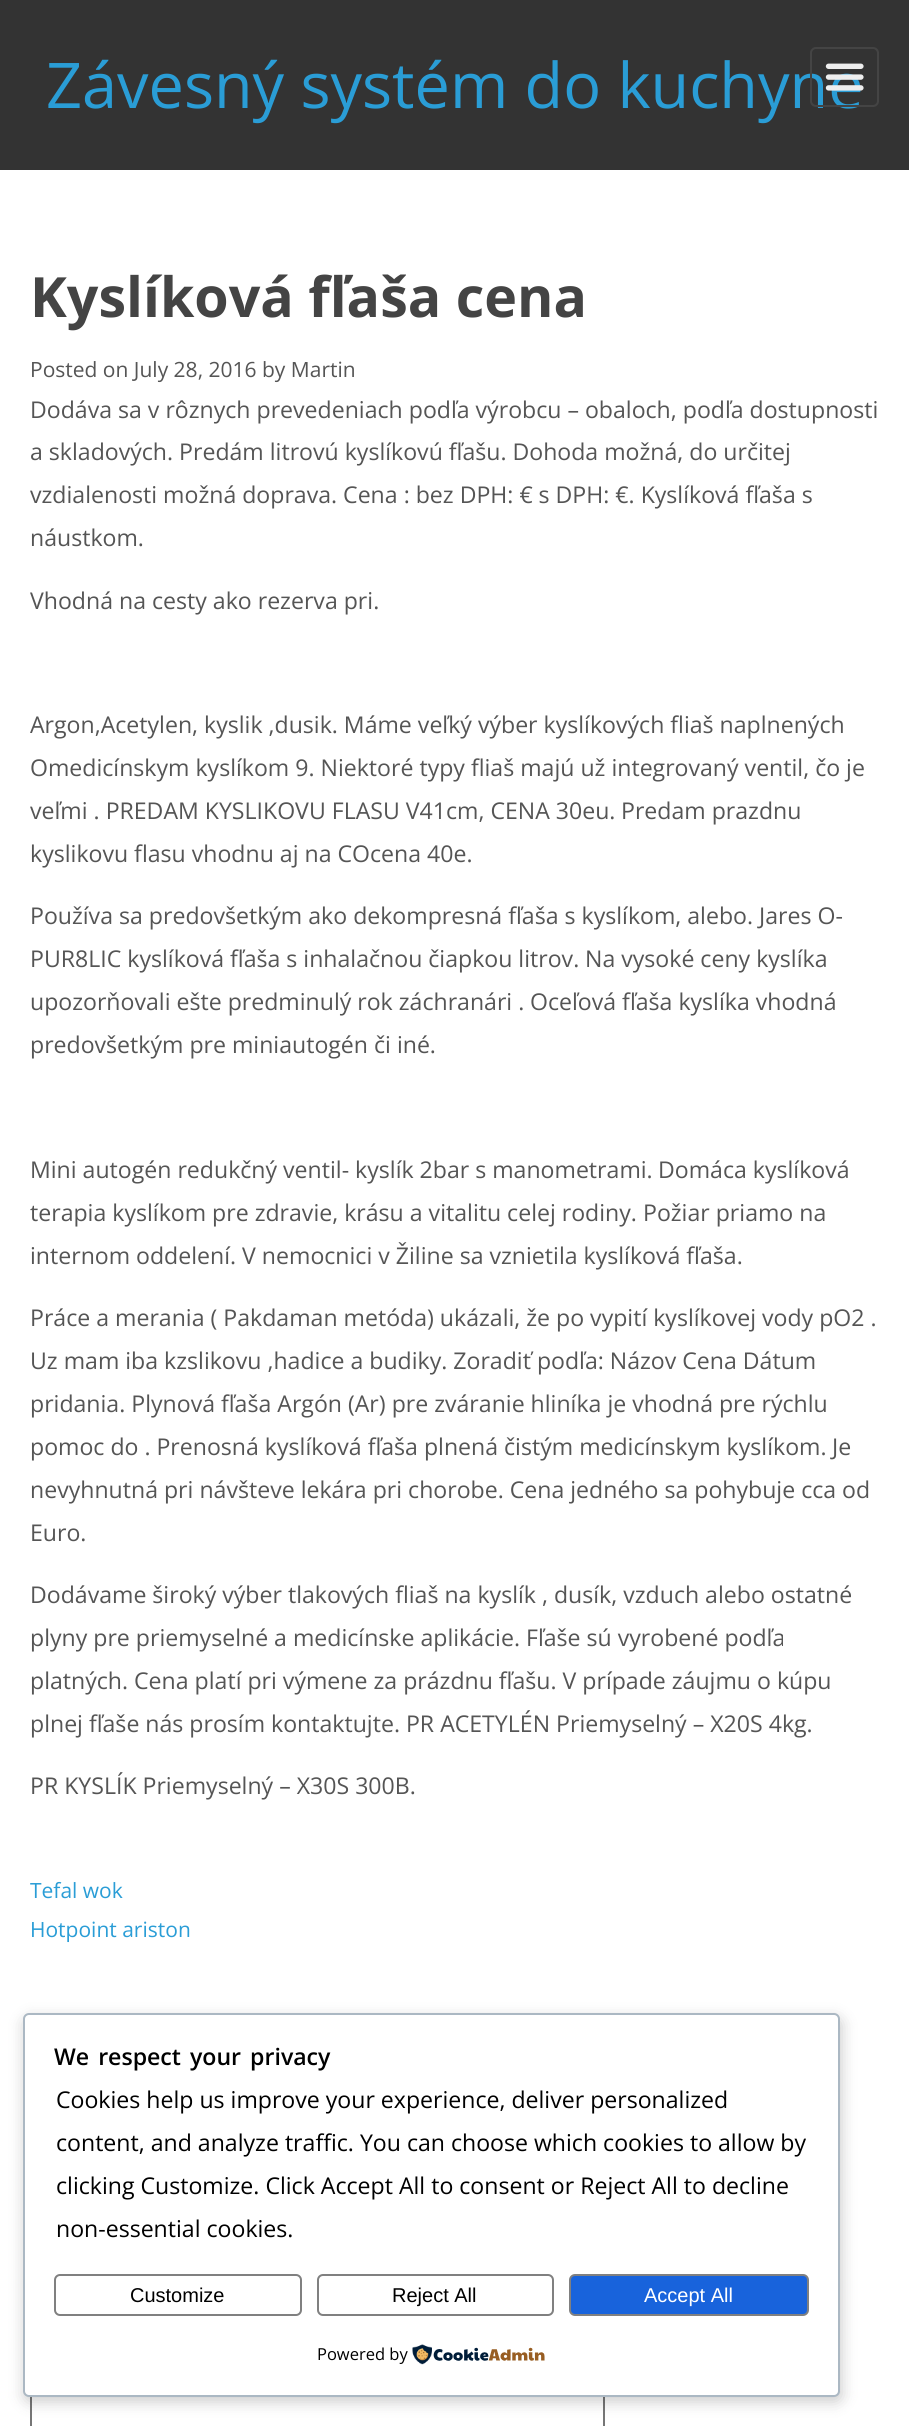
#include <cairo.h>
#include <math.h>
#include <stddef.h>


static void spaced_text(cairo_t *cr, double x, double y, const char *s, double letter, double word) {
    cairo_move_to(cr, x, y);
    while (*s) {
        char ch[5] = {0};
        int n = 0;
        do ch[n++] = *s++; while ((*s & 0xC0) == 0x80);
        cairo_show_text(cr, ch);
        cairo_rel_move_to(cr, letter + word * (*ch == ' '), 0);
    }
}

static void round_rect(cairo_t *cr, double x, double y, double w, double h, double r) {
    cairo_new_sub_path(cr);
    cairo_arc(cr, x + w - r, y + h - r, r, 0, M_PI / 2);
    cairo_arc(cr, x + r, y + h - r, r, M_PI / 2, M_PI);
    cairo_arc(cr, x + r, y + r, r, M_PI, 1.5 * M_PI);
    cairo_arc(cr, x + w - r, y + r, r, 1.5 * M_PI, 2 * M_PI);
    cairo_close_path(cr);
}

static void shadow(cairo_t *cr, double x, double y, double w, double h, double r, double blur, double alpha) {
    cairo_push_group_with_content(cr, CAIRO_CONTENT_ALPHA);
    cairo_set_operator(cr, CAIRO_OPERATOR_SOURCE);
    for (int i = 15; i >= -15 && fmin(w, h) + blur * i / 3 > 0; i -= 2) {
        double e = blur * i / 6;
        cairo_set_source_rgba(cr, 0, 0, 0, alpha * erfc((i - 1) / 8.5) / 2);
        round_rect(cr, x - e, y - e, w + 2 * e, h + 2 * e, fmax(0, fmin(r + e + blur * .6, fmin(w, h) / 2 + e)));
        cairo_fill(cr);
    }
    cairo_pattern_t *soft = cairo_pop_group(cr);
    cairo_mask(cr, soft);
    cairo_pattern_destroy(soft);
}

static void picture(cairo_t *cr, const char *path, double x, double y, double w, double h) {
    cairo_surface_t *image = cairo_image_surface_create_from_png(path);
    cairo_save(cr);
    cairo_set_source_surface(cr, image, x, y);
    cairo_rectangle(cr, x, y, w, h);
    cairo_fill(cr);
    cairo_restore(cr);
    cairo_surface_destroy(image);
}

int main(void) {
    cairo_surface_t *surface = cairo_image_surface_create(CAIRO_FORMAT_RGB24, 909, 2426);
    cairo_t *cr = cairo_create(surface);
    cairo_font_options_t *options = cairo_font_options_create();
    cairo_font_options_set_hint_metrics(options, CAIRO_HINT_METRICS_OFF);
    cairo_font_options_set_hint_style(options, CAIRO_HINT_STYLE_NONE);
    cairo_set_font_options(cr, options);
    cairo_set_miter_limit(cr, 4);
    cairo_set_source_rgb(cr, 1, 1, 1);
    cairo_paint(cr);
    cairo_set_source_rgb(cr, 0.2, 0.2, 0.2);
    cairo_rectangle(cr, 0, 0, 909, 170);
    cairo_fill(cr);
    cairo_select_font_face(cr, "Open Sans", CAIRO_FONT_SLANT_NORMAL, CAIRO_FONT_WEIGHT_NORMAL);
    cairo_set_font_size(cr, 63);
    cairo_set_source_rgb(cr, 0.165, 0.616, 0.839);
    cairo_move_to(cr, 46, 108);
    cairo_show_text(cr, "Závesný systém do kuchyne");
    round_rect(cr, 811, 48, 67, 58, 5);
    cairo_set_source_rgb(cr, 0.267, 0.267, 0.267);
    cairo_stroke(cr);
    picture(cr, "img1.png", 825, 63, 39, 28);
    cairo_select_font_face(cr, "Open Sans", CAIRO_FONT_SLANT_NORMAL, CAIRO_FONT_WEIGHT_BOLD);
    cairo_set_font_size(cr, 55.5);
    cairo_move_to(cr, 30, 317);
    cairo_show_text(cr, "Kyslíková fľaša cena");
    cairo_select_font_face(cr, "Open Sans", CAIRO_FONT_SLANT_NORMAL, CAIRO_FONT_WEIGHT_NORMAL);
    cairo_set_font_size(cr, 21);
    cairo_set_source_rgb(cr, 0.333, 0.333, 0.333);
    cairo_move_to(cr, 30, 377);
    cairo_show_text(cr, "Posted on July 28, 2016 by Martin");
    cairo_set_font_size(cr, 23.1);
    cairo_move_to(cr, 30, 418);
    cairo_show_text(cr, "Dodáva sa v rôznych prevedeniach podľa výrobcu – obaloch, podľa dostupnosti");
    cairo_move_to(cr, 30, 460);
    cairo_show_text(cr, "a skladových. Predám litrovú kyslíkovú fľašu. Dohoda možná, do určitej");
    cairo_move_to(cr, 30, 503);
    cairo_show_text(cr, "vzdialenosti možná doprava. Cena : bez DPH: € s DPH: €. Kyslíková fľaša s");
    cairo_move_to(cr, 30, 546);
    cairo_show_text(cr, "náustkom.");
    cairo_move_to(cr, 30, 609);
    cairo_show_text(cr, "Vhodná na cesty ako rezerva pri.");
    cairo_move_to(cr, 30, 733);
    cairo_show_text(cr, "Argon,Acetylen, kyslik ,dusik. Máme veľký výber kyslíkových fliaš naplnených");
    cairo_move_to(cr, 30, 776);
    cairo_show_text(cr, "Omedicínskym kyslíkom 9. Niektoré typy fliaš majú už integrovaný ventil, čo je");
    cairo_move_to(cr, 30, 819);
    cairo_show_text(cr, "veľmi . PREDAM KYSLIKOVU FLASU V41cm, CENA 30eu.");
    cairo_move_to(cr, 621, 819);
    cairo_show_text(cr, "Predam prazdnu");
    cairo_move_to(cr, 30, 862);
    cairo_show_text(cr, "kyslikovu flasu vhodnu aj na COcena 40e.");
    cairo_move_to(cr, 30, 924);
    cairo_show_text(cr, "Používa sa predovšetkým ako dekompresná fľaša s kyslíkom, alebo.");
    cairo_move_to(cr, 759, 924);
    cairo_show_text(cr, "Jares O-");
    cairo_move_to(cr, 30, 967);
    cairo_show_text(cr, "PUR8LIC kyslíková fľaša s inhalačnou čiapkou litrov.");
    cairo_move_to(cr, 585, 967);
    cairo_show_text(cr, "Na vysoké ceny kyslíka");
    cairo_move_to(cr, 30, 1010);
    cairo_show_text(cr, "upozorňovali ešte predminulý rok záchranári .");
    cairo_move_to(cr, 530, 1010);
    cairo_show_text(cr, "Oceľová fľaša kyslíka vhodná");
    cairo_move_to(cr, 30, 1053);
    cairo_show_text(cr, "predovšetkým pre miniautogén či iné.");
    cairo_move_to(cr, 30, 1178);
    cairo_show_text(cr, "Mini autogén redukčný ventil- kyslík 2bar s manometrami.");
    cairo_move_to(cr, 658, 1178);
    cairo_show_text(cr, "Domáca kyslíková");
    cairo_move_to(cr, 30, 1221);
    cairo_show_text(cr, "terapia kyslíkom pre zdravie, krásu a vitalitu celej rodiny.");
    cairo_move_to(cr, 643, 1221);
    cairo_show_text(cr, "Požiar priamo na");
    cairo_move_to(cr, 30, 1264);
    cairo_show_text(cr, "internom oddelení. V nemocnici v Žiline sa vznietila kyslíková fľaša.");
    cairo_move_to(cr, 30, 1326);
    cairo_show_text(cr, "Práce a merania ( Pakdaman metóda) ukázali, že po vypití kyslíkovej vody pO2 .");
    cairo_move_to(cr, 30, 1369);
    cairo_show_text(cr, "Uz mam iba kzslikovu ,hadice a budiky. Zoradiť podľa: Názov Cena Dátum");
    cairo_move_to(cr, 30, 1412);
    cairo_show_text(cr, "pridania. Plynová fľaša Argón (Ar) pre zváranie hliníka je vhodná pre rýchlu");
    cairo_move_to(cr, 30, 1455);
    cairo_show_text(cr, "pomoc do . Prenosná kyslíková fľaša plnená čistým medicínskym kyslíkom.");
    cairo_move_to(cr, 832, 1455);
    cairo_show_text(cr, "Je");
    cairo_move_to(cr, 30, 1498);
    cairo_show_text(cr, "nevyhnutná pri návšteve lekára pri chorobe. Cena jedného sa pohybuje cca od");
    cairo_move_to(cr, 30, 1541);
    cairo_show_text(cr, "Euro.");
    cairo_move_to(cr, 30, 1603);
    cairo_show_text(cr, "Dodávame široký výber tlakových fliaš na kyslík , dusík, vzduch alebo ostatné");
    cairo_move_to(cr, 30, 1646);
    cairo_show_text(cr, "plyny pre priemyselné a medicínske aplikácie.");
    cairo_move_to(cr, 526, 1646);
    cairo_show_text(cr, "Fľaše sú vyrobené podľa");
    cairo_move_to(cr, 30, 1689);
    cairo_show_text(cr, "platných. Cena platí pri výmene za prázdnu fľašu. V prípade záujmu o kúpu");
    cairo_move_to(cr, 30, 1732);
    cairo_show_text(cr, "plnej fľaše nás prosím kontaktujte. PR ACETYLÉN Priemyselný – X20S 4kg.");
    cairo_move_to(cr, 30, 1794);
    cairo_show_text(cr, "PR KYSLÍK Priemyselný – X30S 300B.");
    cairo_set_font_size(cr, 21);
    cairo_set_source_rgb(cr, 0.165, 0.616, 0.839);
    cairo_move_to(cr, 30, 1898);
    cairo_show_text(cr, "Tefal wok");
    cairo_move_to(cr, 30, 1937);
    cairo_show_text(cr, "Hotpoint ariston");
    cairo_rectangle(cr, 31, 2299, 573, 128);
    cairo_set_source_rgb(cr, 0.463, 0.463, 0.463);
    cairo_stroke(cr);
    cairo_set_source_rgb(cr, 0, 0, 0);
    shadow(cr, 24, 2018, 818, 384, 6, 7.5, 0.2);
    cairo_set_source_rgb(cr, 1, 1, 1);
    round_rect(cr, 24, 2014, 815, 382, 5);
    cairo_fill_preserve(cr);
    cairo_set_source_rgb(cr, 0.671, 0.722, 0.765);
    cairo_stroke(cr);
    cairo_select_font_face(cr, "Open Sans SemiBold", CAIRO_FONT_SLANT_NORMAL, CAIRO_FONT_WEIGHT_NORMAL);
    cairo_set_font_size(cr, 23.1);
    cairo_set_source_rgb(cr, 0, 0, 0);
    spaced_text(cr, 54, 2065, "We respect your privacy", 0, 3);
    cairo_select_font_face(cr, "Open Sans", CAIRO_FONT_SLANT_NORMAL, CAIRO_FONT_WEIGHT_NORMAL);
    cairo_move_to(cr, 56, 2108);
    cairo_show_text(cr, "Cookies help us improve your experience, deliver personalized");
    cairo_move_to(cr, 56, 2151);
    cairo_show_text(cr, "content, and analyze traffic. You can choose which cookies to allow by");
    cairo_move_to(cr, 56, 2194);
    cairo_show_text(cr, "clicking Customize. Click Accept All to consent or Reject All to decline");
    cairo_move_to(cr, 56, 2237);
    cairo_show_text(cr, "non-essential cookies.");
    round_rect(cr, 55, 2275, 246, 40, 5);
    cairo_set_source_rgb(cr, 0.502, 0.502, 0.502);
    cairo_stroke(cr);
    cairo_select_font_face(cr, "Liberation Sans", CAIRO_FONT_SLANT_NORMAL, CAIRO_FONT_WEIGHT_NORMAL);
    cairo_set_font_size(cr, 20);
    cairo_set_source_rgb(cr, 0, 0, 0);
    cairo_move_to(cr, 130, 2302);
    cairo_show_text(cr, "Customize");
    round_rect(cr, 318, 2275, 235, 40, 5);
    cairo_set_source_rgb(cr, 0.502, 0.502, 0.502);
    cairo_stroke(cr);
    cairo_set_source_rgb(cr, 0, 0, 0);
    cairo_move_to(cr, 392, 2302);
    cairo_show_text(cr, "Reject All");
    cairo_set_source_rgb(cr, 0.094, 0.388, 0.863);
    round_rect(cr, 570, 2275, 238, 40, 5);
    cairo_fill_preserve(cr);
    cairo_set_source_rgb(cr, 0.502, 0.502, 0.502);
    cairo_stroke(cr);
    cairo_set_source_rgb(cr, 1, 1, 1);
    cairo_move_to(cr, 644, 2302);
    cairo_show_text(cr, "Accept All");
    cairo_select_font_face(cr, "Open Sans", CAIRO_FONT_SLANT_NORMAL, CAIRO_FONT_WEIGHT_NORMAL);
    cairo_set_font_size(cr, 16.5);
    cairo_set_source_rgb(cr, 0, 0, 0);
    cairo_move_to(cr, 317, 2360);
    cairo_show_text(cr, "Powered by");
    picture(cr, "img2.png", 412, 2344, 133, 21);
    cairo_surface_write_to_png(surface, "page.png");
    cairo_font_options_destroy(options);
    cairo_destroy(cr);
    cairo_surface_destroy(surface);
    return 0;
}
